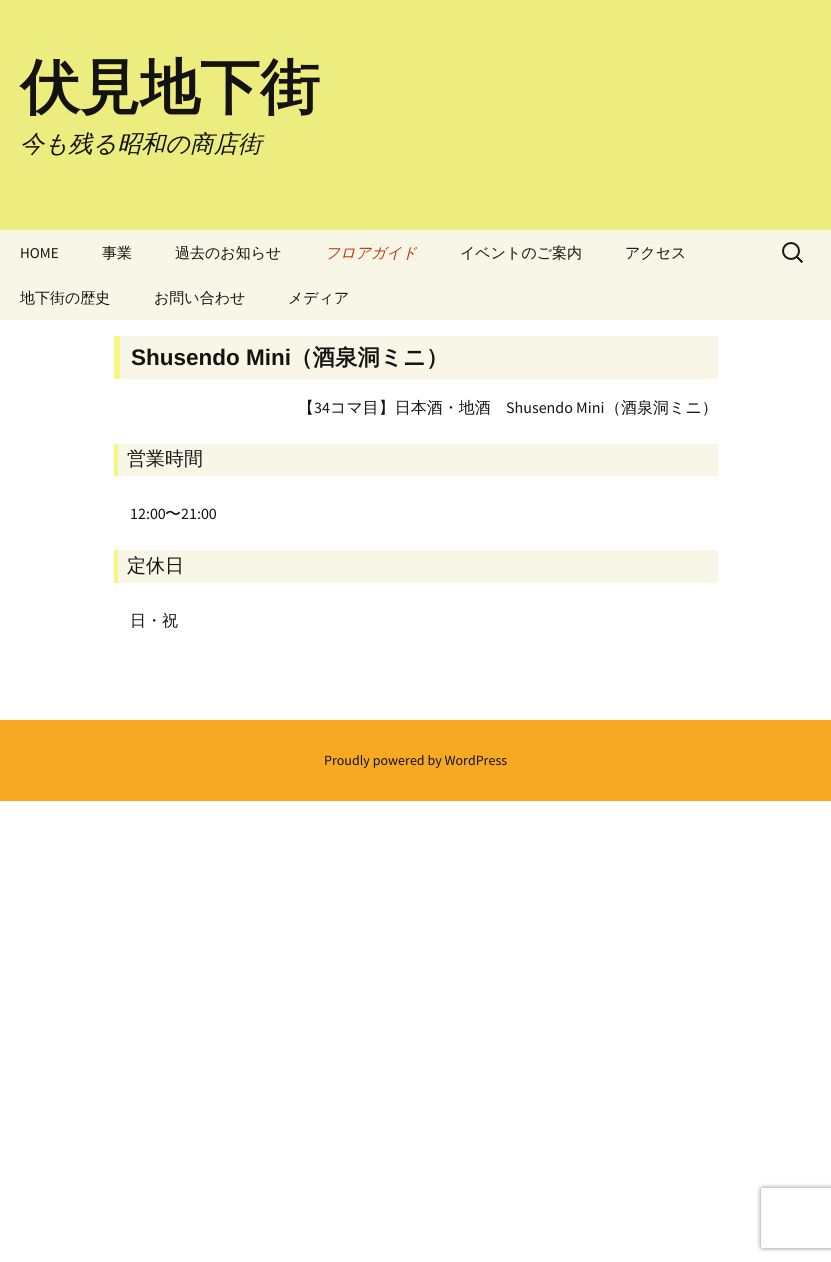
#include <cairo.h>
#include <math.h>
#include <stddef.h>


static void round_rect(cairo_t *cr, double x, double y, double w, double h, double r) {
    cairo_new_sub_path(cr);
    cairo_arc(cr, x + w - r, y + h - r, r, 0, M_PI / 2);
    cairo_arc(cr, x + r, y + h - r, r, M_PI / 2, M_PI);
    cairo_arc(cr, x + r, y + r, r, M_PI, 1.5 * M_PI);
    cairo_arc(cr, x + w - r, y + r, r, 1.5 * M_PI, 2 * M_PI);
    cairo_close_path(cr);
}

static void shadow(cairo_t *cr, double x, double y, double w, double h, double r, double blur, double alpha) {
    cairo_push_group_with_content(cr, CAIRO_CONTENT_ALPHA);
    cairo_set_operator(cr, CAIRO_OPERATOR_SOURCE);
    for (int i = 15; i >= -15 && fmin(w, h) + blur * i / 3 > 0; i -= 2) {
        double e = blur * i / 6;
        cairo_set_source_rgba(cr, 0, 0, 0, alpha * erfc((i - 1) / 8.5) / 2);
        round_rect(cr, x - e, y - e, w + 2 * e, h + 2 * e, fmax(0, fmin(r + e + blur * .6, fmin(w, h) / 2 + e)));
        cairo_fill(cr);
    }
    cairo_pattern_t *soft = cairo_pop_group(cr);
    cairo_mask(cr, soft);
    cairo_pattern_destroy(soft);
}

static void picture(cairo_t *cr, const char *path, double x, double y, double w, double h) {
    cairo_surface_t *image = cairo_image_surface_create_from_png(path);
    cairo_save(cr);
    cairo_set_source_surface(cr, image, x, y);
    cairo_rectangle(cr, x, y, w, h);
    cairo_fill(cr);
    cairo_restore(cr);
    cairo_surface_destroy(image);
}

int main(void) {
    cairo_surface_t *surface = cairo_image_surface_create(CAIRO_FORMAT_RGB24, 831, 1262);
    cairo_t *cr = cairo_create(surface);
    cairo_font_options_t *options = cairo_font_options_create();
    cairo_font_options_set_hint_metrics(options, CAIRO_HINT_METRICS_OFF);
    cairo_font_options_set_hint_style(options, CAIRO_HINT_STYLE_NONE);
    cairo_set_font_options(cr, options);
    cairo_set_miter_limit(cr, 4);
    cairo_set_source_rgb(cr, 1, 1, 1);
    cairo_paint(cr);
    cairo_set_source_rgb(cr, 0.925, 0.922, 0.498);
    cairo_rectangle(cr, 0, 0, 831, 230);
    cairo_fill(cr);
    cairo_select_font_face(cr, "WenQuanYi Zen Hei", CAIRO_FONT_SLANT_NORMAL, CAIRO_FONT_WEIGHT_BOLD);
    cairo_set_font_size(cr, 60);
    cairo_set_source_rgb(cr, 0.078, 0.078, 0.071);
    cairo_move_to(cr, 20, 108);
    cairo_show_text(cr, "伏見地下街");
    cairo_select_font_face(cr, "WenQuanYi Zen Hei Medium", CAIRO_FONT_SLANT_ITALIC, CAIRO_FONT_WEIGHT_NORMAL);
    cairo_set_font_size(cr, 24);
    cairo_move_to(cr, 20, 152);
    cairo_show_text(cr, "今も残る昭和の商店街");
    cairo_set_source_rgb(cr, 0.969, 0.961, 0.906);
    cairo_rectangle(cr, 0, 230, 831, 90);
    cairo_fill(cr);
    cairo_select_font_face(cr, "Source Sans Pro", CAIRO_FONT_SLANT_NORMAL, CAIRO_FONT_WEIGHT_NORMAL);
    cairo_set_font_size(cr, 15);
    cairo_set_source_rgb(cr, 0.078, 0.078, 0.071);
    cairo_move_to(cr, 20, 258);
    cairo_show_text(cr, "HOME");
    cairo_select_font_face(cr, "WenQuanYi Zen Hei Medium", CAIRO_FONT_SLANT_NORMAL, CAIRO_FONT_WEIGHT_NORMAL);
    cairo_move_to(cr, 102, 258);
    cairo_show_text(cr, "事業");
    cairo_move_to(cr, 175, 258);
    cairo_show_text(cr, "過去のお知らせ");
    cairo_select_font_face(cr, "WenQuanYi Zen Hei Medium", CAIRO_FONT_SLANT_ITALIC, CAIRO_FONT_WEIGHT_NORMAL);
    cairo_set_source_rgb(cr, 0.737, 0.212, 0.039);
    cairo_move_to(cr, 325, 258);
    cairo_show_text(cr, "フロアガイド");
    cairo_select_font_face(cr, "WenQuanYi Zen Hei Medium", CAIRO_FONT_SLANT_NORMAL, CAIRO_FONT_WEIGHT_NORMAL);
    cairo_set_source_rgb(cr, 0.078, 0.078, 0.071);
    cairo_move_to(cr, 460, 258);
    cairo_show_text(cr, "イベントのご案内");
    cairo_move_to(cr, 625, 258);
    cairo_show_text(cr, "アクセス");
    cairo_move_to(cr, 20, 303);
    cairo_show_text(cr, "地下街の歴史");
    cairo_move_to(cr, 154, 303);
    cairo_show_text(cr, "お問い合わせ");
    cairo_move_to(cr, 288, 303);
    cairo_show_text(cr, "メディア");
    picture(cr, "img1.png", 782, 242, 21, 21);
    cairo_set_source_rgb(cr, 0.969, 0.961, 0.906);
    cairo_rectangle(cr, 120, 336, 598, 43);
    cairo_fill(cr);
    cairo_set_source_rgb(cr, 0.965, 0.961, 0.522);
    cairo_rectangle(cr, 114, 336, 6, 43);
    cairo_fill(cr);
    cairo_select_font_face(cr, "Liberation Sans", CAIRO_FONT_SLANT_NORMAL, CAIRO_FONT_WEIGHT_BOLD);
    cairo_set_font_size(cr, 22.5);
    cairo_set_source_rgb(cr, 0.078, 0.078, 0.071);
    cairo_move_to(cr, 131, 365);
    cairo_show_text(cr, "Shusendo Mini");
    cairo_select_font_face(cr, "WenQuanYi Zen Hei", CAIRO_FONT_SLANT_NORMAL, CAIRO_FONT_WEIGHT_BOLD);
    cairo_move_to(cr, 290, 365);
    cairo_show_text(cr, "（酒泉洞ミニ）");
    cairo_select_font_face(cr, "WenQuanYi Zen Hei Medium", CAIRO_FONT_SLANT_NORMAL, CAIRO_FONT_WEIGHT_NORMAL);
    cairo_set_font_size(cr, 16);
    cairo_move_to(cr, 298, 413);
    cairo_show_text(cr, "【");
    cairo_select_font_face(cr, "Source Sans Pro", CAIRO_FONT_SLANT_NORMAL, CAIRO_FONT_WEIGHT_NORMAL);
    cairo_move_to(cr, 314, 413);
    cairo_show_text(cr, "34");
    cairo_select_font_face(cr, "WenQuanYi Zen Hei Medium", CAIRO_FONT_SLANT_NORMAL, CAIRO_FONT_WEIGHT_NORMAL);
    cairo_move_to(cr, 330, 413);
    cairo_show_text(cr, "コマ目】日本酒・地酒");
    cairo_select_font_face(cr, "Source Sans Pro", CAIRO_FONT_SLANT_NORMAL, CAIRO_FONT_WEIGHT_NORMAL);
    cairo_move_to(cr, 506, 413);
    cairo_show_text(cr, "Shusendo Mini");
    cairo_select_font_face(cr, "WenQuanYi Zen Hei Medium", CAIRO_FONT_SLANT_NORMAL, CAIRO_FONT_WEIGHT_NORMAL);
    cairo_move_to(cr, 605, 413);
    cairo_show_text(cr, "（酒泉洞ミニ）");
    cairo_set_source_rgb(cr, 0.969, 0.961, 0.906);
    cairo_rectangle(cr, 118, 444, 600, 32);
    cairo_fill(cr);
    cairo_set_source_rgb(cr, 0.965, 0.961, 0.522);
    cairo_rectangle(cr, 114, 444, 4, 32);
    cairo_fill(cr);
    cairo_set_font_size(cr, 19);
    cairo_set_source_rgb(cr, 0.078, 0.078, 0.071);
    cairo_move_to(cr, 127, 465);
    cairo_show_text(cr, "営業時間");
    cairo_select_font_face(cr, "Source Sans Pro", CAIRO_FONT_SLANT_NORMAL, CAIRO_FONT_WEIGHT_NORMAL);
    cairo_set_font_size(cr, 16);
    cairo_move_to(cr, 130, 519);
    cairo_show_text(cr, "12:00");
    cairo_select_font_face(cr, "WenQuanYi Zen Hei Medium", CAIRO_FONT_SLANT_NORMAL, CAIRO_FONT_WEIGHT_NORMAL);
    cairo_move_to(cr, 165, 519);
    cairo_show_text(cr, "〜");
    cairo_select_font_face(cr, "Source Sans Pro", CAIRO_FONT_SLANT_NORMAL, CAIRO_FONT_WEIGHT_NORMAL);
    cairo_move_to(cr, 181, 519);
    cairo_show_text(cr, "21:00");
    cairo_set_source_rgb(cr, 0.969, 0.961, 0.906);
    cairo_rectangle(cr, 118, 550, 600, 33);
    cairo_fill(cr);
    cairo_set_source_rgb(cr, 0.965, 0.961, 0.522);
    cairo_rectangle(cr, 114, 550, 4, 33);
    cairo_fill(cr);
    cairo_select_font_face(cr, "WenQuanYi Zen Hei Medium", CAIRO_FONT_SLANT_NORMAL, CAIRO_FONT_WEIGHT_NORMAL);
    cairo_set_font_size(cr, 19);
    cairo_set_source_rgb(cr, 0.078, 0.078, 0.071);
    cairo_move_to(cr, 127, 572);
    cairo_show_text(cr, "定休日");
    cairo_set_font_size(cr, 16);
    cairo_move_to(cr, 130, 626);
    cairo_show_text(cr, "日・祝");
    cairo_set_source_rgb(cr, 0.965, 0.663, 0.137);
    cairo_rectangle(cr, 0, 720, 831, 81);
    cairo_fill(cr);
    cairo_select_font_face(cr, "Source Sans Pro", CAIRO_FONT_SLANT_NORMAL, CAIRO_FONT_WEIGHT_NORMAL);
    cairo_set_font_size(cr, 14);
    cairo_set_source_rgb(cr, 0.078, 0.078, 0.071);
    cairo_move_to(cr, 324, 765);
    cairo_show_text(cr, "Proudly powered by WordPress");
    cairo_save(cr);
    cairo_set_fill_rule(cr, CAIRO_FILL_RULE_EVEN_ODD);
    cairo_new_path(cr);
    cairo_move_to(cr, 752, 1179);
    cairo_line_to(cr, 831, 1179);
    cairo_line_to(cr, 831, 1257);
    cairo_line_to(cr, 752, 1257);
    cairo_close_path(cr);
    cairo_move_to(cr, 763, 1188);
    cairo_line_to(cr, 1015, 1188);
    cairo_curve_to(cr, 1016, 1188, 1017, 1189, 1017, 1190);
    cairo_line_to(cr, 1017, 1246);
    cairo_curve_to(cr, 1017, 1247, 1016, 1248, 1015, 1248);
    cairo_line_to(cr, 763, 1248);
    cairo_curve_to(cr, 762, 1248, 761, 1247, 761, 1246);
    cairo_line_to(cr, 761, 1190);
    cairo_curve_to(cr, 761, 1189, 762, 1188, 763, 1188);
    cairo_close_path(cr);
    cairo_clip(cr);
    cairo_set_source_rgb(cr, 0.502, 0.502, 0.502);
    shadow(cr, 761, 1188, 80, 60, 2, 2.5, 1);
    cairo_restore(cr);
    cairo_surface_write_to_png(surface, "page.png");
    cairo_font_options_destroy(options);
    cairo_destroy(cr);
    cairo_surface_destroy(surface);
    return 0;
}
